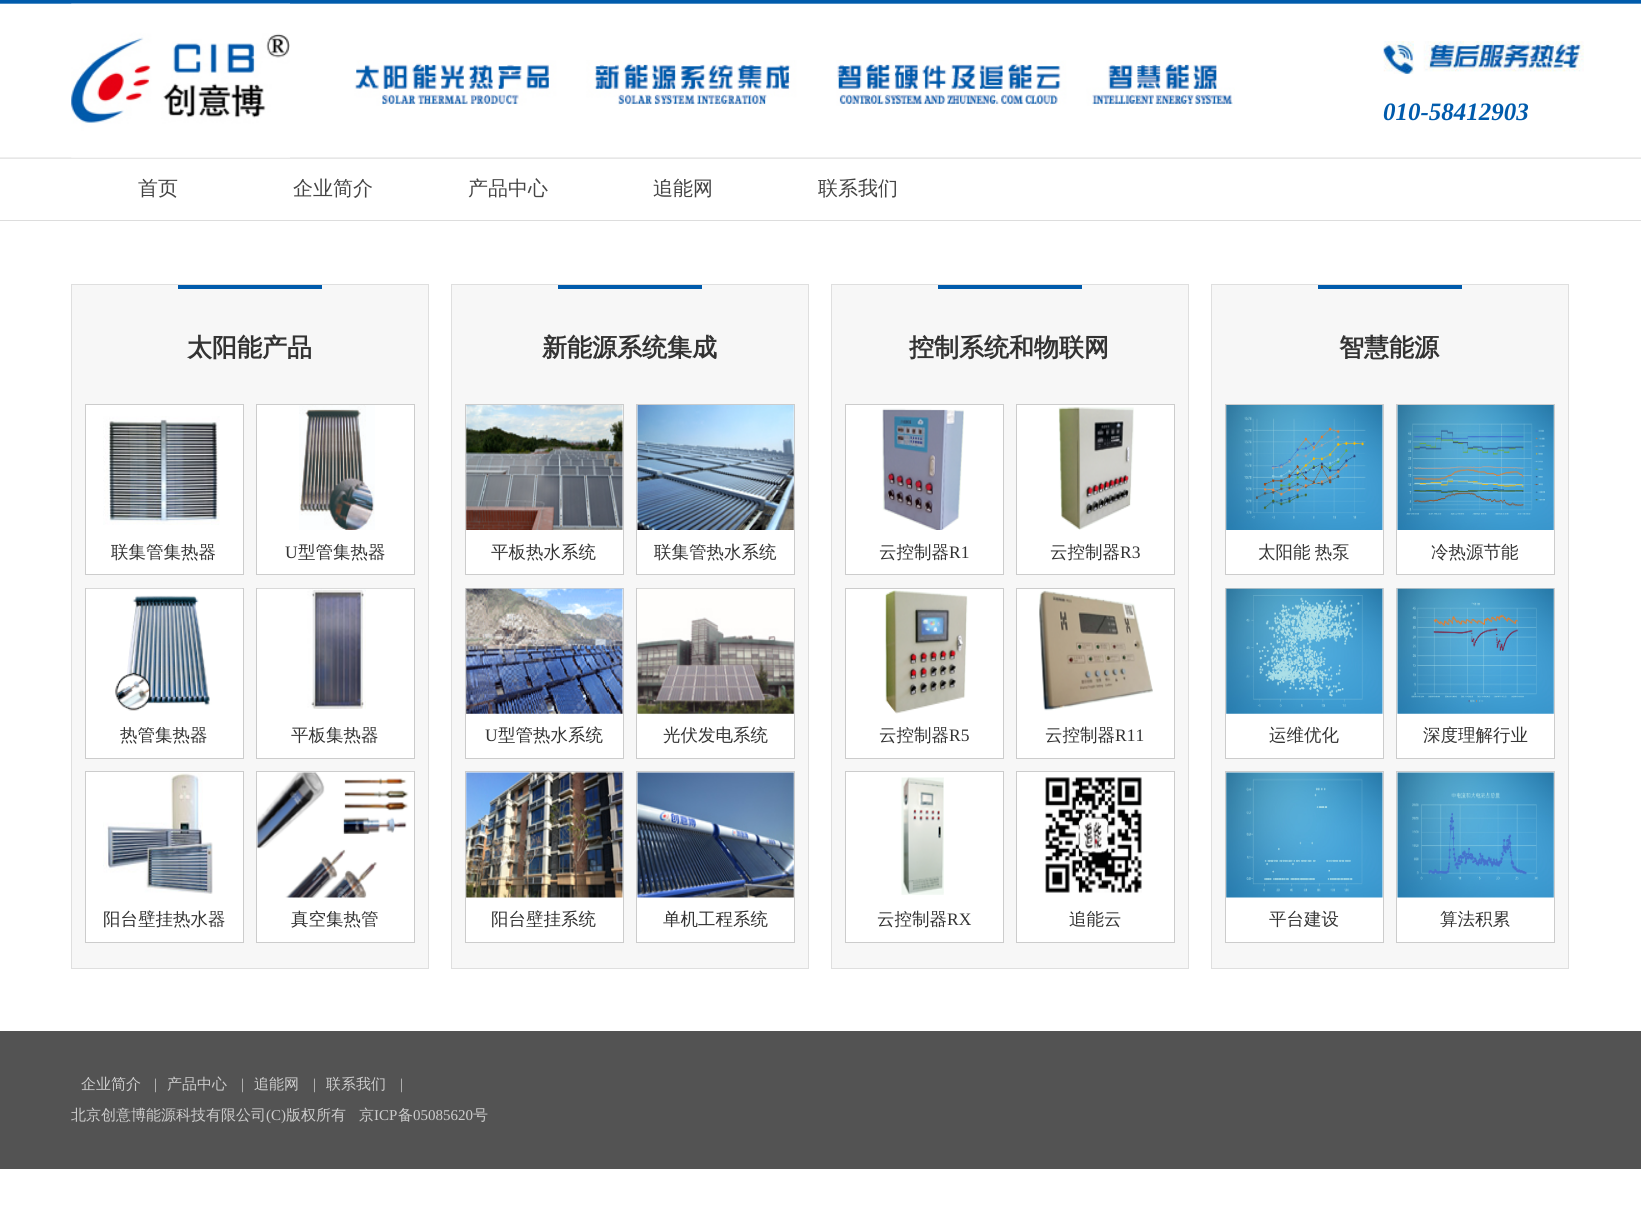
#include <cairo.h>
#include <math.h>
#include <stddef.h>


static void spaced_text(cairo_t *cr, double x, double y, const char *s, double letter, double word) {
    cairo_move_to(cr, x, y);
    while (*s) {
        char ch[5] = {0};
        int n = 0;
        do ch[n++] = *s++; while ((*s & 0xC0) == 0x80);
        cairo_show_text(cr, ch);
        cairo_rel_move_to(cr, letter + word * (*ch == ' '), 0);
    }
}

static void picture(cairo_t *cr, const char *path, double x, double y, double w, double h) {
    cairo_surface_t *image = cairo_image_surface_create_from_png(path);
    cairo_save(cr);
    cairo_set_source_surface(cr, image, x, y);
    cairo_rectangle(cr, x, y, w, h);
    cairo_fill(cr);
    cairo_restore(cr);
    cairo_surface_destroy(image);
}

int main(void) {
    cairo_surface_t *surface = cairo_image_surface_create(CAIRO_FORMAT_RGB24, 1641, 1227);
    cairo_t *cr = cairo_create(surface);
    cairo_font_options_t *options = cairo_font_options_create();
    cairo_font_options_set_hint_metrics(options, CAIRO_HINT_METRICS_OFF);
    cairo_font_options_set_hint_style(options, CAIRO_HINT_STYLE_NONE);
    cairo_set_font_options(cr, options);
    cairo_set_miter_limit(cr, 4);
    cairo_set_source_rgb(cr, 1, 1, 1);
    cairo_paint(cr);
    picture(cr, "img1.png", 0, 0, 1641, 159);
    picture(cr, "img2.png", 71, 3, 219, 155);
    picture(cr, "img3.png", 354, 60, 881, 46);
    picture(cr, "img4.png", 1383, 41, 201, 33);
    cairo_select_font_face(cr, "Liberation Serif", CAIRO_FONT_SLANT_ITALIC, CAIRO_FONT_WEIGHT_BOLD);
    cairo_set_font_size(cr, 25);
    cairo_set_source_rgb(cr, 0, 0.357, 0.675);
    cairo_move_to(cr, 1383, 120);
    cairo_show_text(cr, "010-58412903");
    cairo_select_font_face(cr, "WenQuanYi Zen Hei Medium", CAIRO_FONT_SLANT_NORMAL, CAIRO_FONT_WEIGHT_NORMAL);
    cairo_set_font_size(cr, 20);
    cairo_set_source_rgb(cr, 0.267, 0.267, 0.267);
    cairo_move_to(cr, 138, 195);
    cairo_show_text(cr, "首页");
    cairo_move_to(cr, 293, 195);
    cairo_show_text(cr, "企业简介");
    cairo_move_to(cr, 468, 195);
    cairo_show_text(cr, "产品中心");
    cairo_move_to(cr, 653, 195);
    cairo_show_text(cr, "追能网");
    cairo_move_to(cr, 818, 195);
    cairo_show_text(cr, "联系我们");
    cairo_set_source_rgb(cr, 0.867, 0.867, 0.867);
    cairo_rectangle(cr, 0, 220, 1641, 1);
    cairo_fill(cr);
    cairo_set_source_rgb(cr, 0.965, 0.965, 0.965);
    cairo_rectangle(cr, 72, 285, 356, 683);
    cairo_fill(cr);
    cairo_set_source_rgb(cr, 0, 0.357, 0.675);
    cairo_rectangle(cr, 178, 285, 144, 4);
    cairo_fill(cr);
    cairo_rectangle(cr, 71.5, 284.5, 357, 684);
    cairo_set_source_rgb(cr, 0.875, 0.875, 0.875);
    cairo_set_line_width(cr, 1);
    cairo_stroke(cr);
    cairo_select_font_face(cr, "WenQuanYi Zen Hei", CAIRO_FONT_SLANT_NORMAL, CAIRO_FONT_WEIGHT_BOLD);
    cairo_set_font_size(cr, 25);
    cairo_set_source_rgb(cr, 0.2, 0.2, 0.2);
    cairo_move_to(cr, 187, 356);
    cairo_show_text(cr, "太阳能产品");
    cairo_set_source_rgb(cr, 1, 1, 1);
    cairo_rectangle(cr, 85.5, 404.5, 158, 170);
    cairo_fill_preserve(cr);
    cairo_set_source_rgb(cr, 0.8, 0.8, 0.8);
    cairo_stroke(cr);
    picture(cr, "img5.png", 103, 416, 117, 109);
    cairo_select_font_face(cr, "WenQuanYi Zen Hei Medium", CAIRO_FONT_SLANT_NORMAL, CAIRO_FONT_WEIGHT_NORMAL);
    cairo_set_font_size(cr, 17.5);
    cairo_set_source_rgb(cr, 0.2, 0.2, 0.2);
    cairo_move_to(cr, 111, 558);
    cairo_show_text(cr, "联集管集热器");
    cairo_set_source_rgb(cr, 1, 1, 1);
    cairo_rectangle(cr, 256.5, 404.5, 158, 170);
    cairo_fill_preserve(cr);
    cairo_set_source_rgb(cr, 0.8, 0.8, 0.8);
    cairo_stroke(cr);
    picture(cr, "img6.png", 299, 405, 76, 125);
    cairo_select_font_face(cr, "Liberation Serif", CAIRO_FONT_SLANT_NORMAL, CAIRO_FONT_WEIGHT_NORMAL);
    cairo_set_source_rgb(cr, 0.2, 0.2, 0.2);
    cairo_move_to(cr, 285, 558);
    cairo_show_text(cr, "U");
    cairo_select_font_face(cr, "WenQuanYi Zen Hei Medium", CAIRO_FONT_SLANT_NORMAL, CAIRO_FONT_WEIGHT_NORMAL);
    cairo_move_to(cr, 298, 558);
    cairo_show_text(cr, "型管集热器");
    cairo_set_source_rgb(cr, 1, 1, 1);
    cairo_rectangle(cr, 85.5, 588.5, 158, 170);
    cairo_fill_preserve(cr);
    cairo_set_source_rgb(cr, 0.8, 0.8, 0.8);
    cairo_stroke(cr);
    picture(cr, "img7.png", 86, 588, 157, 123);
    cairo_set_source_rgb(cr, 0.2, 0.2, 0.2);
    cairo_move_to(cr, 120, 741);
    cairo_show_text(cr, "热管集热器");
    cairo_set_source_rgb(cr, 1, 1, 1);
    cairo_rectangle(cr, 256.5, 588.5, 158, 170);
    cairo_fill_preserve(cr);
    cairo_set_source_rgb(cr, 0.8, 0.8, 0.8);
    cairo_stroke(cr);
    picture(cr, "img8.png", 257, 588, 157, 121);
    cairo_set_source_rgb(cr, 0.2, 0.2, 0.2);
    cairo_move_to(cr, 291, 741);
    cairo_show_text(cr, "平板集热器");
    cairo_set_source_rgb(cr, 1, 1, 1);
    cairo_rectangle(cr, 85.5, 771.5, 158, 171);
    cairo_fill_preserve(cr);
    cairo_set_source_rgb(cr, 0.8, 0.8, 0.8);
    cairo_stroke(cr);
    picture(cr, "img9.png", 103, 773, 110, 121);
    cairo_set_source_rgb(cr, 0.2, 0.2, 0.2);
    cairo_move_to(cr, 103, 925);
    cairo_show_text(cr, "阳台壁挂热水器");
    cairo_set_source_rgb(cr, 1, 1, 1);
    cairo_rectangle(cr, 256.5, 771.5, 158, 171);
    cairo_fill_preserve(cr);
    cairo_set_source_rgb(cr, 0.8, 0.8, 0.8);
    cairo_stroke(cr);
    picture(cr, "img10.png", 257, 772, 152, 126);
    cairo_set_source_rgb(cr, 0.2, 0.2, 0.2);
    cairo_move_to(cr, 291, 925);
    cairo_show_text(cr, "真空集热管");
    cairo_set_source_rgb(cr, 0.965, 0.965, 0.965);
    cairo_rectangle(cr, 452, 285, 356, 683);
    cairo_fill(cr);
    cairo_set_source_rgb(cr, 0, 0.357, 0.675);
    cairo_rectangle(cr, 558, 285, 144, 4);
    cairo_fill(cr);
    cairo_rectangle(cr, 451.5, 284.5, 357, 684);
    cairo_set_source_rgb(cr, 0.875, 0.875, 0.875);
    cairo_stroke(cr);
    cairo_select_font_face(cr, "WenQuanYi Zen Hei", CAIRO_FONT_SLANT_NORMAL, CAIRO_FONT_WEIGHT_BOLD);
    cairo_set_font_size(cr, 25);
    cairo_set_source_rgb(cr, 0.2, 0.2, 0.2);
    cairo_move_to(cr, 542, 356);
    cairo_show_text(cr, "新能源系统集成");
    cairo_set_source_rgb(cr, 1, 1, 1);
    cairo_rectangle(cr, 465.5, 404.5, 158, 170);
    cairo_fill_preserve(cr);
    cairo_set_source_rgb(cr, 0.8, 0.8, 0.8);
    cairo_stroke(cr);
    picture(cr, "img11.png", 466, 405, 157, 125);
    cairo_select_font_face(cr, "WenQuanYi Zen Hei Medium", CAIRO_FONT_SLANT_NORMAL, CAIRO_FONT_WEIGHT_NORMAL);
    cairo_set_font_size(cr, 17.5);
    cairo_set_source_rgb(cr, 0.2, 0.2, 0.2);
    cairo_move_to(cr, 491, 558);
    cairo_show_text(cr, "平板热水系统");
    cairo_set_source_rgb(cr, 1, 1, 1);
    cairo_rectangle(cr, 636.5, 404.5, 158, 170);
    cairo_fill_preserve(cr);
    cairo_set_source_rgb(cr, 0.8, 0.8, 0.8);
    cairo_stroke(cr);
    picture(cr, "img12.png", 637, 405, 157, 125);
    cairo_set_source_rgb(cr, 0.2, 0.2, 0.2);
    cairo_move_to(cr, 654, 558);
    cairo_show_text(cr, "联集管热水系统");
    cairo_set_source_rgb(cr, 1, 1, 1);
    cairo_rectangle(cr, 465.5, 588.5, 158, 170);
    cairo_fill_preserve(cr);
    cairo_set_source_rgb(cr, 0.8, 0.8, 0.8);
    cairo_stroke(cr);
    picture(cr, "img13.png", 466, 588, 157, 126);
    cairo_select_font_face(cr, "Liberation Serif", CAIRO_FONT_SLANT_NORMAL, CAIRO_FONT_WEIGHT_NORMAL);
    cairo_set_source_rgb(cr, 0.2, 0.2, 0.2);
    cairo_move_to(cr, 485, 741);
    cairo_show_text(cr, "U");
    cairo_select_font_face(cr, "WenQuanYi Zen Hei Medium", CAIRO_FONT_SLANT_NORMAL, CAIRO_FONT_WEIGHT_NORMAL);
    cairo_move_to(cr, 498, 741);
    cairo_show_text(cr, "型管热水系统");
    cairo_set_source_rgb(cr, 1, 1, 1);
    cairo_rectangle(cr, 636.5, 588.5, 158, 170);
    cairo_fill_preserve(cr);
    cairo_set_source_rgb(cr, 0.8, 0.8, 0.8);
    cairo_stroke(cr);
    picture(cr, "img14.png", 637, 588, 157, 126);
    cairo_set_source_rgb(cr, 0.2, 0.2, 0.2);
    cairo_move_to(cr, 663, 741);
    cairo_show_text(cr, "光伏发电系统");
    cairo_set_source_rgb(cr, 1, 1, 1);
    cairo_rectangle(cr, 465.5, 771.5, 158, 171);
    cairo_fill_preserve(cr);
    cairo_set_source_rgb(cr, 0.8, 0.8, 0.8);
    cairo_stroke(cr);
    picture(cr, "img15.png", 466, 772, 157, 126);
    cairo_set_source_rgb(cr, 0.2, 0.2, 0.2);
    cairo_move_to(cr, 491, 925);
    cairo_show_text(cr, "阳台壁挂系统");
    cairo_set_source_rgb(cr, 1, 1, 1);
    cairo_rectangle(cr, 636.5, 771.5, 158, 171);
    cairo_fill_preserve(cr);
    cairo_set_source_rgb(cr, 0.8, 0.8, 0.8);
    cairo_stroke(cr);
    picture(cr, "img16.png", 637, 772, 157, 126);
    cairo_set_source_rgb(cr, 0.2, 0.2, 0.2);
    cairo_move_to(cr, 663, 925);
    cairo_show_text(cr, "单机工程系统");
    cairo_set_source_rgb(cr, 0.965, 0.965, 0.965);
    cairo_rectangle(cr, 832, 285, 356, 683);
    cairo_fill(cr);
    cairo_set_source_rgb(cr, 0, 0.357, 0.675);
    cairo_rectangle(cr, 938, 285, 144, 4);
    cairo_fill(cr);
    cairo_rectangle(cr, 831.5, 284.5, 357, 684);
    cairo_set_source_rgb(cr, 0.875, 0.875, 0.875);
    cairo_stroke(cr);
    cairo_select_font_face(cr, "WenQuanYi Zen Hei", CAIRO_FONT_SLANT_NORMAL, CAIRO_FONT_WEIGHT_BOLD);
    cairo_set_font_size(cr, 25);
    cairo_set_source_rgb(cr, 0.2, 0.2, 0.2);
    cairo_move_to(cr, 909, 356);
    cairo_show_text(cr, "控制系统和物联网");
    cairo_set_source_rgb(cr, 1, 1, 1);
    cairo_rectangle(cr, 845.5, 404.5, 158, 170);
    cairo_fill_preserve(cr);
    cairo_set_source_rgb(cr, 0.8, 0.8, 0.8);
    cairo_stroke(cr);
    picture(cr, "img17.png", 882, 408, 82, 122);
    cairo_select_font_face(cr, "WenQuanYi Zen Hei Medium", CAIRO_FONT_SLANT_NORMAL, CAIRO_FONT_WEIGHT_NORMAL);
    cairo_set_font_size(cr, 17.5);
    cairo_set_source_rgb(cr, 0.2, 0.2, 0.2);
    cairo_move_to(cr, 879, 558);
    cairo_show_text(cr, "云控制器");
    cairo_select_font_face(cr, "Liberation Serif", CAIRO_FONT_SLANT_NORMAL, CAIRO_FONT_WEIGHT_NORMAL);
    cairo_move_to(cr, 949, 558);
    cairo_show_text(cr, "R1");
    cairo_set_source_rgb(cr, 1, 1, 1);
    cairo_rectangle(cr, 1016.5, 404.5, 158, 170);
    cairo_fill_preserve(cr);
    cairo_set_source_rgb(cr, 0.8, 0.8, 0.8);
    cairo_stroke(cr);
    picture(cr, "img18.png", 1058, 407, 76, 123);
    cairo_select_font_face(cr, "WenQuanYi Zen Hei Medium", CAIRO_FONT_SLANT_NORMAL, CAIRO_FONT_WEIGHT_NORMAL);
    cairo_set_source_rgb(cr, 0.2, 0.2, 0.2);
    cairo_move_to(cr, 1050, 558);
    cairo_show_text(cr, "云控制器");
    cairo_select_font_face(cr, "Liberation Serif", CAIRO_FONT_SLANT_NORMAL, CAIRO_FONT_WEIGHT_NORMAL);
    cairo_move_to(cr, 1120, 558);
    cairo_show_text(cr, "R3");
    cairo_set_source_rgb(cr, 1, 1, 1);
    cairo_rectangle(cr, 845.5, 588.5, 158, 170);
    cairo_fill_preserve(cr);
    cairo_set_source_rgb(cr, 0.8, 0.8, 0.8);
    cairo_stroke(cr);
    picture(cr, "img19.png", 885, 590, 83, 124);
    cairo_select_font_face(cr, "WenQuanYi Zen Hei Medium", CAIRO_FONT_SLANT_NORMAL, CAIRO_FONT_WEIGHT_NORMAL);
    cairo_set_source_rgb(cr, 0.2, 0.2, 0.2);
    cairo_move_to(cr, 879, 741);
    cairo_show_text(cr, "云控制器");
    cairo_select_font_face(cr, "Liberation Serif", CAIRO_FONT_SLANT_NORMAL, CAIRO_FONT_WEIGHT_NORMAL);
    cairo_move_to(cr, 949, 741);
    cairo_show_text(cr, "R5");
    cairo_set_source_rgb(cr, 1, 1, 1);
    cairo_rectangle(cr, 1016.5, 588.5, 158, 170);
    cairo_fill_preserve(cr);
    cairo_set_source_rgb(cr, 0.8, 0.8, 0.8);
    cairo_stroke(cr);
    picture(cr, "img20.png", 1039, 590, 114, 121);
    cairo_select_font_face(cr, "WenQuanYi Zen Hei Medium", CAIRO_FONT_SLANT_NORMAL, CAIRO_FONT_WEIGHT_NORMAL);
    cairo_set_source_rgb(cr, 0.2, 0.2, 0.2);
    cairo_move_to(cr, 1045, 741);
    cairo_show_text(cr, "云控制器");
    cairo_select_font_face(cr, "Liberation Serif", CAIRO_FONT_SLANT_NORMAL, CAIRO_FONT_WEIGHT_NORMAL);
    cairo_move_to(cr, 1115, 741);
    cairo_show_text(cr, "R11");
    cairo_set_source_rgb(cr, 1, 1, 1);
    cairo_rectangle(cr, 845.5, 771.5, 158, 171);
    cairo_fill_preserve(cr);
    cairo_set_source_rgb(cr, 0.8, 0.8, 0.8);
    cairo_stroke(cr);
    picture(cr, "img21.png", 901, 777, 43, 118);
    cairo_select_font_face(cr, "WenQuanYi Zen Hei Medium", CAIRO_FONT_SLANT_NORMAL, CAIRO_FONT_WEIGHT_NORMAL);
    cairo_set_source_rgb(cr, 0.2, 0.2, 0.2);
    cairo_move_to(cr, 877, 925);
    cairo_show_text(cr, "云控制器");
    cairo_select_font_face(cr, "Liberation Serif", CAIRO_FONT_SLANT_NORMAL, CAIRO_FONT_WEIGHT_NORMAL);
    cairo_move_to(cr, 947, 925);
    cairo_show_text(cr, "RX");
    cairo_set_source_rgb(cr, 1, 1, 1);
    cairo_rectangle(cr, 1016.5, 771.5, 158, 171);
    cairo_fill_preserve(cr);
    cairo_set_source_rgb(cr, 0.8, 0.8, 0.8);
    cairo_stroke(cr);
    picture(cr, "img22.png", 1045, 777, 97, 116);
    cairo_select_font_face(cr, "WenQuanYi Zen Hei Medium", CAIRO_FONT_SLANT_NORMAL, CAIRO_FONT_WEIGHT_NORMAL);
    cairo_set_source_rgb(cr, 0.2, 0.2, 0.2);
    cairo_move_to(cr, 1069, 925);
    cairo_show_text(cr, "追能云");
    cairo_set_source_rgb(cr, 0.965, 0.965, 0.965);
    cairo_rectangle(cr, 1212, 285, 356, 683);
    cairo_fill(cr);
    cairo_set_source_rgb(cr, 0, 0.357, 0.675);
    cairo_rectangle(cr, 1318, 285, 144, 4);
    cairo_fill(cr);
    cairo_rectangle(cr, 1211.5, 284.5, 357, 684);
    cairo_set_source_rgb(cr, 0.875, 0.875, 0.875);
    cairo_stroke(cr);
    cairo_select_font_face(cr, "WenQuanYi Zen Hei", CAIRO_FONT_SLANT_NORMAL, CAIRO_FONT_WEIGHT_BOLD);
    cairo_set_font_size(cr, 25);
    cairo_set_source_rgb(cr, 0.2, 0.2, 0.2);
    cairo_move_to(cr, 1339, 356);
    cairo_show_text(cr, "智慧能源");
    cairo_set_source_rgb(cr, 1, 1, 1);
    cairo_rectangle(cr, 1225.5, 404.5, 158, 170);
    cairo_fill_preserve(cr);
    cairo_set_source_rgb(cr, 0.8, 0.8, 0.8);
    cairo_stroke(cr);
    picture(cr, "img23.png", 1226, 405, 157, 125);
    cairo_select_font_face(cr, "WenQuanYi Zen Hei Medium", CAIRO_FONT_SLANT_NORMAL, CAIRO_FONT_WEIGHT_NORMAL);
    cairo_set_font_size(cr, 17.5);
    cairo_set_source_rgb(cr, 0.2, 0.2, 0.2);
    spaced_text(cr, 1258, 558, "太阳能 热泵", 0, -1);
    cairo_set_source_rgb(cr, 1, 1, 1);
    cairo_rectangle(cr, 1396.5, 404.5, 158, 170);
    cairo_fill_preserve(cr);
    cairo_set_source_rgb(cr, 0.8, 0.8, 0.8);
    cairo_stroke(cr);
    picture(cr, "img24.png", 1397, 405, 157, 125);
    cairo_set_source_rgb(cr, 0.2, 0.2, 0.2);
    cairo_move_to(cr, 1431, 558);
    cairo_show_text(cr, "冷热源节能");
    cairo_set_source_rgb(cr, 1, 1, 1);
    cairo_rectangle(cr, 1225.5, 588.5, 158, 170);
    cairo_fill_preserve(cr);
    cairo_set_source_rgb(cr, 0.8, 0.8, 0.8);
    cairo_stroke(cr);
    picture(cr, "img25.png", 1226, 588, 157, 126);
    cairo_set_source_rgb(cr, 0.2, 0.2, 0.2);
    cairo_move_to(cr, 1269, 741);
    cairo_show_text(cr, "运维优化");
    cairo_set_source_rgb(cr, 1, 1, 1);
    cairo_rectangle(cr, 1396.5, 588.5, 158, 170);
    cairo_fill_preserve(cr);
    cairo_set_source_rgb(cr, 0.8, 0.8, 0.8);
    cairo_stroke(cr);
    picture(cr, "img26.png", 1397, 588, 157, 126);
    cairo_set_source_rgb(cr, 0.2, 0.2, 0.2);
    cairo_move_to(cr, 1423, 741);
    cairo_show_text(cr, "深度理解行业");
    cairo_set_source_rgb(cr, 1, 1, 1);
    cairo_rectangle(cr, 1225.5, 771.5, 158, 171);
    cairo_fill_preserve(cr);
    cairo_set_source_rgb(cr, 0.8, 0.8, 0.8);
    cairo_stroke(cr);
    picture(cr, "img27.png", 1226, 772, 157, 126);
    cairo_set_source_rgb(cr, 0.2, 0.2, 0.2);
    cairo_move_to(cr, 1269, 925);
    cairo_show_text(cr, "平台建设");
    cairo_set_source_rgb(cr, 1, 1, 1);
    cairo_rectangle(cr, 1396.5, 771.5, 158, 171);
    cairo_fill_preserve(cr);
    cairo_set_source_rgb(cr, 0.8, 0.8, 0.8);
    cairo_stroke(cr);
    picture(cr, "img28.png", 1397, 772, 157, 126);
    cairo_set_source_rgb(cr, 0.2, 0.2, 0.2);
    cairo_move_to(cr, 1440, 925);
    cairo_show_text(cr, "算法积累");
    cairo_set_source_rgb(cr, 0.325, 0.325, 0.325);
    cairo_rectangle(cr, 0, 1031, 1641, 138);
    cairo_fill(cr);
    cairo_set_font_size(cr, 15);
    cairo_set_source_rgb(cr, 0.8, 0.8, 0.8);
    cairo_move_to(cr, 81, 1089);
    cairo_show_text(cr, "企业简介");
    cairo_select_font_face(cr, "Liberation Serif", CAIRO_FONT_SLANT_NORMAL, CAIRO_FONT_WEIGHT_NORMAL);
    cairo_move_to(cr, 154, 1089);
    cairo_show_text(cr, "|");
    cairo_select_font_face(cr, "WenQuanYi Zen Hei Medium", CAIRO_FONT_SLANT_NORMAL, CAIRO_FONT_WEIGHT_NORMAL);
    cairo_move_to(cr, 167, 1089);
    cairo_show_text(cr, "产品中心");
    cairo_select_font_face(cr, "Liberation Serif", CAIRO_FONT_SLANT_NORMAL, CAIRO_FONT_WEIGHT_NORMAL);
    cairo_move_to(cr, 241, 1089);
    cairo_show_text(cr, "|");
    cairo_select_font_face(cr, "WenQuanYi Zen Hei Medium", CAIRO_FONT_SLANT_NORMAL, CAIRO_FONT_WEIGHT_NORMAL);
    cairo_move_to(cr, 254, 1089);
    cairo_show_text(cr, "追能网");
    cairo_select_font_face(cr, "Liberation Serif", CAIRO_FONT_SLANT_NORMAL, CAIRO_FONT_WEIGHT_NORMAL);
    cairo_move_to(cr, 313, 1089);
    cairo_show_text(cr, "|");
    cairo_select_font_face(cr, "WenQuanYi Zen Hei Medium", CAIRO_FONT_SLANT_NORMAL, CAIRO_FONT_WEIGHT_NORMAL);
    cairo_move_to(cr, 326, 1089);
    cairo_show_text(cr, "联系我们");
    cairo_select_font_face(cr, "Liberation Serif", CAIRO_FONT_SLANT_NORMAL, CAIRO_FONT_WEIGHT_NORMAL);
    cairo_move_to(cr, 400, 1089);
    cairo_show_text(cr, "|");
    cairo_select_font_face(cr, "WenQuanYi Zen Hei Medium", CAIRO_FONT_SLANT_NORMAL, CAIRO_FONT_WEIGHT_NORMAL);
    cairo_move_to(cr, 71, 1120);
    cairo_show_text(cr, "北京创意博能源科技有限公司");
    cairo_select_font_face(cr, "Liberation Serif", CAIRO_FONT_SLANT_NORMAL, CAIRO_FONT_WEIGHT_NORMAL);
    cairo_move_to(cr, 266, 1120);
    cairo_show_text(cr, "(C)");
    cairo_select_font_face(cr, "WenQuanYi Zen Hei Medium", CAIRO_FONT_SLANT_NORMAL, CAIRO_FONT_WEIGHT_NORMAL);
    cairo_move_to(cr, 286, 1120);
    cairo_show_text(cr, "版权所有");
    cairo_move_to(cr, 359, 1120);
    cairo_show_text(cr, "京");
    cairo_select_font_face(cr, "Liberation Serif", CAIRO_FONT_SLANT_NORMAL, CAIRO_FONT_WEIGHT_NORMAL);
    cairo_move_to(cr, 374, 1120);
    cairo_show_text(cr, "ICP");
    cairo_select_font_face(cr, "WenQuanYi Zen Hei Medium", CAIRO_FONT_SLANT_NORMAL, CAIRO_FONT_WEIGHT_NORMAL);
    cairo_move_to(cr, 398, 1120);
    cairo_show_text(cr, "备");
    cairo_select_font_face(cr, "Liberation Serif", CAIRO_FONT_SLANT_NORMAL, CAIRO_FONT_WEIGHT_NORMAL);
    cairo_move_to(cr, 413, 1120);
    cairo_show_text(cr, "05085620");
    cairo_select_font_face(cr, "WenQuanYi Zen Hei Medium", CAIRO_FONT_SLANT_NORMAL, CAIRO_FONT_WEIGHT_NORMAL);
    cairo_move_to(cr, 473, 1120);
    cairo_show_text(cr, "号");
    cairo_surface_write_to_png(surface, "page.png");
    cairo_font_options_destroy(options);
    cairo_destroy(cr);
    cairo_surface_destroy(surface);
    return 0;
}
